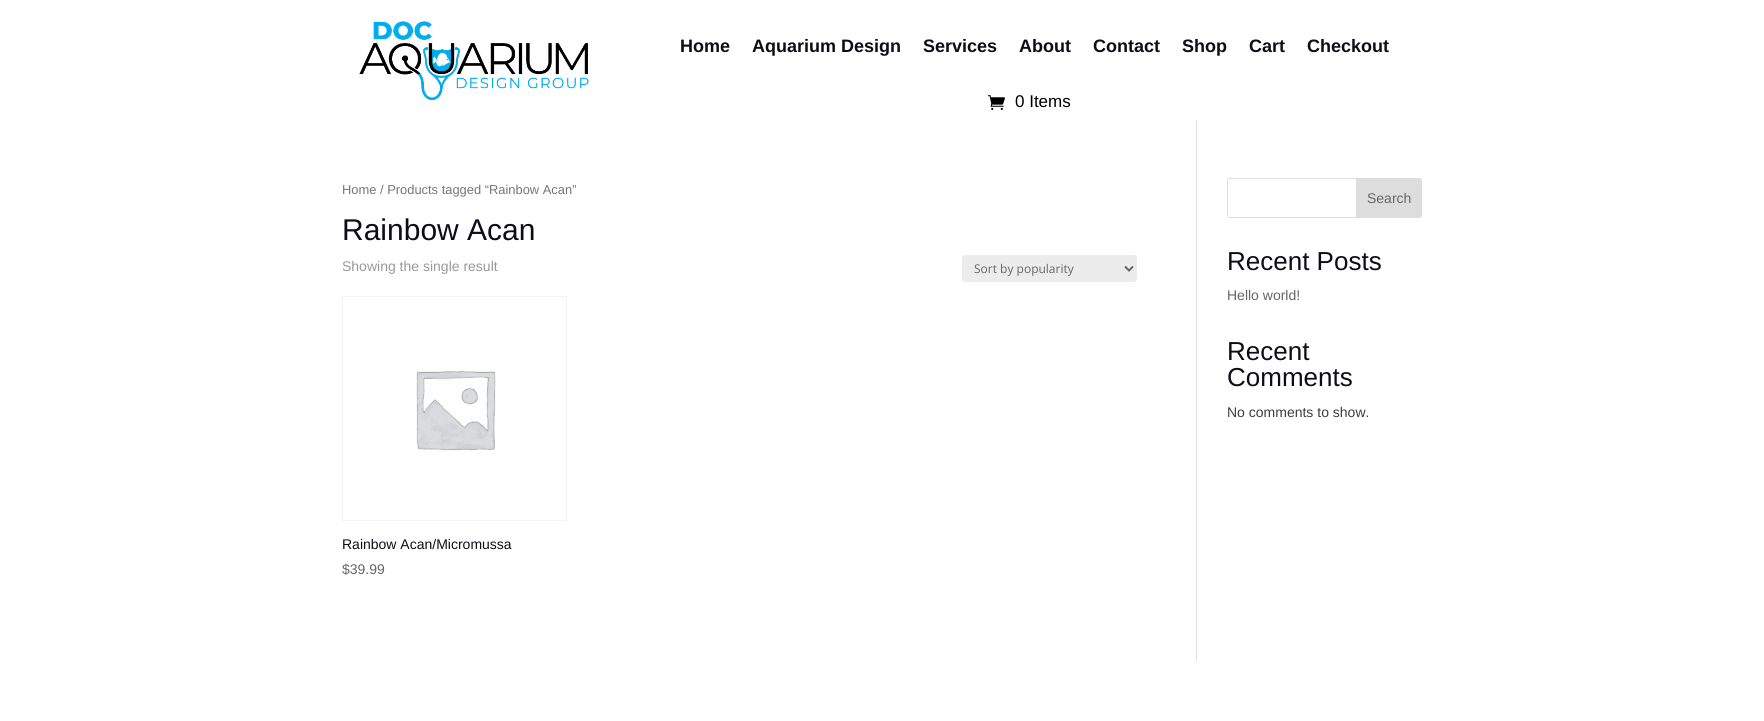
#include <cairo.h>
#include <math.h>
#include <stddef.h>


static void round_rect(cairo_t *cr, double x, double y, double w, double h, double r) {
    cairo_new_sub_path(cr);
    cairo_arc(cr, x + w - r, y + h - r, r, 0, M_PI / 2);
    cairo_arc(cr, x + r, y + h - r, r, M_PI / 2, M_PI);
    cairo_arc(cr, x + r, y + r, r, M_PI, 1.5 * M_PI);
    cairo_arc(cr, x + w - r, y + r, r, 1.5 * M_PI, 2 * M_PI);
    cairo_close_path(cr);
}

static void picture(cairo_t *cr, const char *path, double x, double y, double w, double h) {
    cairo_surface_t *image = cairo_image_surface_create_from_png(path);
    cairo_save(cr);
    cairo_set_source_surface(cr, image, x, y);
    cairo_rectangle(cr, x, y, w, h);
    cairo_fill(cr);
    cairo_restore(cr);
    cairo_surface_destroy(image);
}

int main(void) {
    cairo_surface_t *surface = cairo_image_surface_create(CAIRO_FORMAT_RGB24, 1764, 721);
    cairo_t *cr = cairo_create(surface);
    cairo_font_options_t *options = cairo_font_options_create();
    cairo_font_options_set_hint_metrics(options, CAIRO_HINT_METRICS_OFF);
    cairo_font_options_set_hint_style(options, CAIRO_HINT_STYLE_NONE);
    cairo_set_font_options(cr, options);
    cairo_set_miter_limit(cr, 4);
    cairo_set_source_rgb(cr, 1, 1, 1);
    cairo_paint(cr);
    picture(cr, "img1.png", 359, 21, 230, 79);
    cairo_select_font_face(cr, "Liberation Sans", CAIRO_FONT_SLANT_NORMAL, CAIRO_FONT_WEIGHT_BOLD);
    cairo_set_font_size(cr, 18);
    cairo_set_source_rgb(cr, 0.055, 0.047, 0.098);
    cairo_move_to(cr, 680, 52);
    cairo_show_text(cr, "Home");
    cairo_move_to(cr, 752, 52);
    cairo_show_text(cr, "Aquarium Design");
    cairo_move_to(cr, 923, 52);
    cairo_show_text(cr, "Services");
    cairo_move_to(cr, 1019, 52);
    cairo_show_text(cr, "About");
    cairo_move_to(cr, 1093, 52);
    cairo_show_text(cr, "Contact");
    cairo_move_to(cr, 1182, 52);
    cairo_show_text(cr, "Shop");
    cairo_move_to(cr, 1249, 52);
    cairo_show_text(cr, "Cart");
    cairo_move_to(cr, 1307, 52);
    cairo_show_text(cr, "Checkout");
    picture(cr, "img2.png", 988, 95, 17, 15);
    cairo_select_font_face(cr, "Liberation Sans", CAIRO_FONT_SLANT_NORMAL, CAIRO_FONT_WEIGHT_NORMAL);
    cairo_set_font_size(cr, 17);
    cairo_set_source_rgb(cr, 0, 0, 0);
    cairo_move_to(cr, 1015, 107);
    cairo_show_text(cr, "0 Items");
    cairo_set_source_rgb(cr, 0.886, 0.886, 0.886);
    cairo_rectangle(cr, 1196, 120, 1, 541);
    cairo_fill(cr);
    cairo_set_font_size(cr, 12.9);
    cairo_set_source_rgb(cr, 0.463, 0.463, 0.463);
    cairo_move_to(cr, 342, 194);
    cairo_show_text(cr, "Home / Products tagged “Rainbow Acan”");
    cairo_set_font_size(cr, 30);
    cairo_set_source_rgb(cr, 0.055, 0.047, 0.098);
    cairo_move_to(cr, 342, 240);
    cairo_show_text(cr, "Rainbow Acan");
    cairo_set_font_size(cr, 14);
    cairo_set_source_rgb(cr, 0.6, 0.6, 0.6);
    cairo_move_to(cr, 342, 271);
    cairo_show_text(cr, "Showing the single result");
    cairo_set_source_rgb(cr, 0.925, 0.925, 0.925);
    round_rect(cr, 962, 255, 175, 27, 3);
    cairo_fill(cr);
    cairo_new_path(cr);
    cairo_move_to(cr, 1125, 266.5);
    cairo_line_to(cr, 1129, 270.5);
    cairo_line_to(cr, 1133, 266.5);
    cairo_set_source_rgb(cr, 0.4, 0.4, 0.4);
    cairo_stroke(cr);
    cairo_select_font_face(cr, "Open Sans", CAIRO_FONT_SLANT_NORMAL, CAIRO_FONT_WEIGHT_NORMAL);
    cairo_set_font_size(cr, 12);
    cairo_move_to(cr, 974, 273);
    cairo_show_text(cr, "Sort by popularity");
    cairo_rectangle(cr, 342.5, 296.5, 224, 224);
    cairo_set_source_rgb(cr, 0.949, 0.949, 0.949);
    cairo_set_line_width(cr, 1);
    cairo_stroke(cr);
    picture(cr, "img3.png", 416, 370, 80, 81);
    cairo_select_font_face(cr, "Liberation Sans", CAIRO_FONT_SLANT_NORMAL, CAIRO_FONT_WEIGHT_NORMAL);
    cairo_set_font_size(cr, 14);
    cairo_set_source_rgb(cr, 0.055, 0.047, 0.098);
    cairo_move_to(cr, 342, 549);
    cairo_show_text(cr, "Rainbow Acan/Micromussa");
    cairo_set_source_rgb(cr, 0.4, 0.4, 0.4);
    cairo_move_to(cr, 342, 574);
    cairo_show_text(cr, "$39.99");
    round_rect(cr, 1227.5, 178.5, 194, 39, 2.5);
    cairo_set_source_rgb(cr, 0.867, 0.867, 0.867);
    cairo_stroke(cr);
    cairo_new_path(cr);
    cairo_move_to(cr, 1356.5, 178.5);
    cairo_line_to(cr, 1419, 178.5);
    cairo_curve_to(cr, 1420.5, 178.5, 1421.5, 179.5, 1421.5, 181);
    cairo_line_to(cr, 1421.5, 215);
    cairo_curve_to(cr, 1421.5, 216.5, 1420.5, 217.5, 1419, 217.5);
    cairo_line_to(cr, 1356.5, 217.5);
    cairo_close_path(cr);
    cairo_fill_preserve(cr);
    cairo_stroke(cr);
    cairo_set_source_rgb(cr, 0.4, 0.4, 0.4);
    cairo_move_to(cr, 1367, 203);
    cairo_show_text(cr, "Search");
    cairo_set_font_size(cr, 26);
    cairo_set_source_rgb(cr, 0.055, 0.047, 0.098);
    cairo_move_to(cr, 1227, 270);
    cairo_show_text(cr, "Recent Posts");
    cairo_set_font_size(cr, 14);
    cairo_set_source_rgb(cr, 0.4, 0.4, 0.4);
    cairo_move_to(cr, 1227, 300);
    cairo_show_text(cr, "Hello world!");
    cairo_set_font_size(cr, 26);
    cairo_set_source_rgb(cr, 0.055, 0.047, 0.098);
    cairo_move_to(cr, 1227, 360);
    cairo_show_text(cr, "Recent");
    cairo_move_to(cr, 1227, 386);
    cairo_show_text(cr, "Comments");
    cairo_set_font_size(cr, 14);
    cairo_set_source_rgb(cr, 0.235, 0.227, 0.278);
    cairo_move_to(cr, 1227, 417);
    cairo_show_text(cr, "No comments to show.");
    cairo_surface_write_to_png(surface, "page.png");
    cairo_font_options_destroy(options);
    cairo_destroy(cr);
    cairo_surface_destroy(surface);
    return 0;
}
